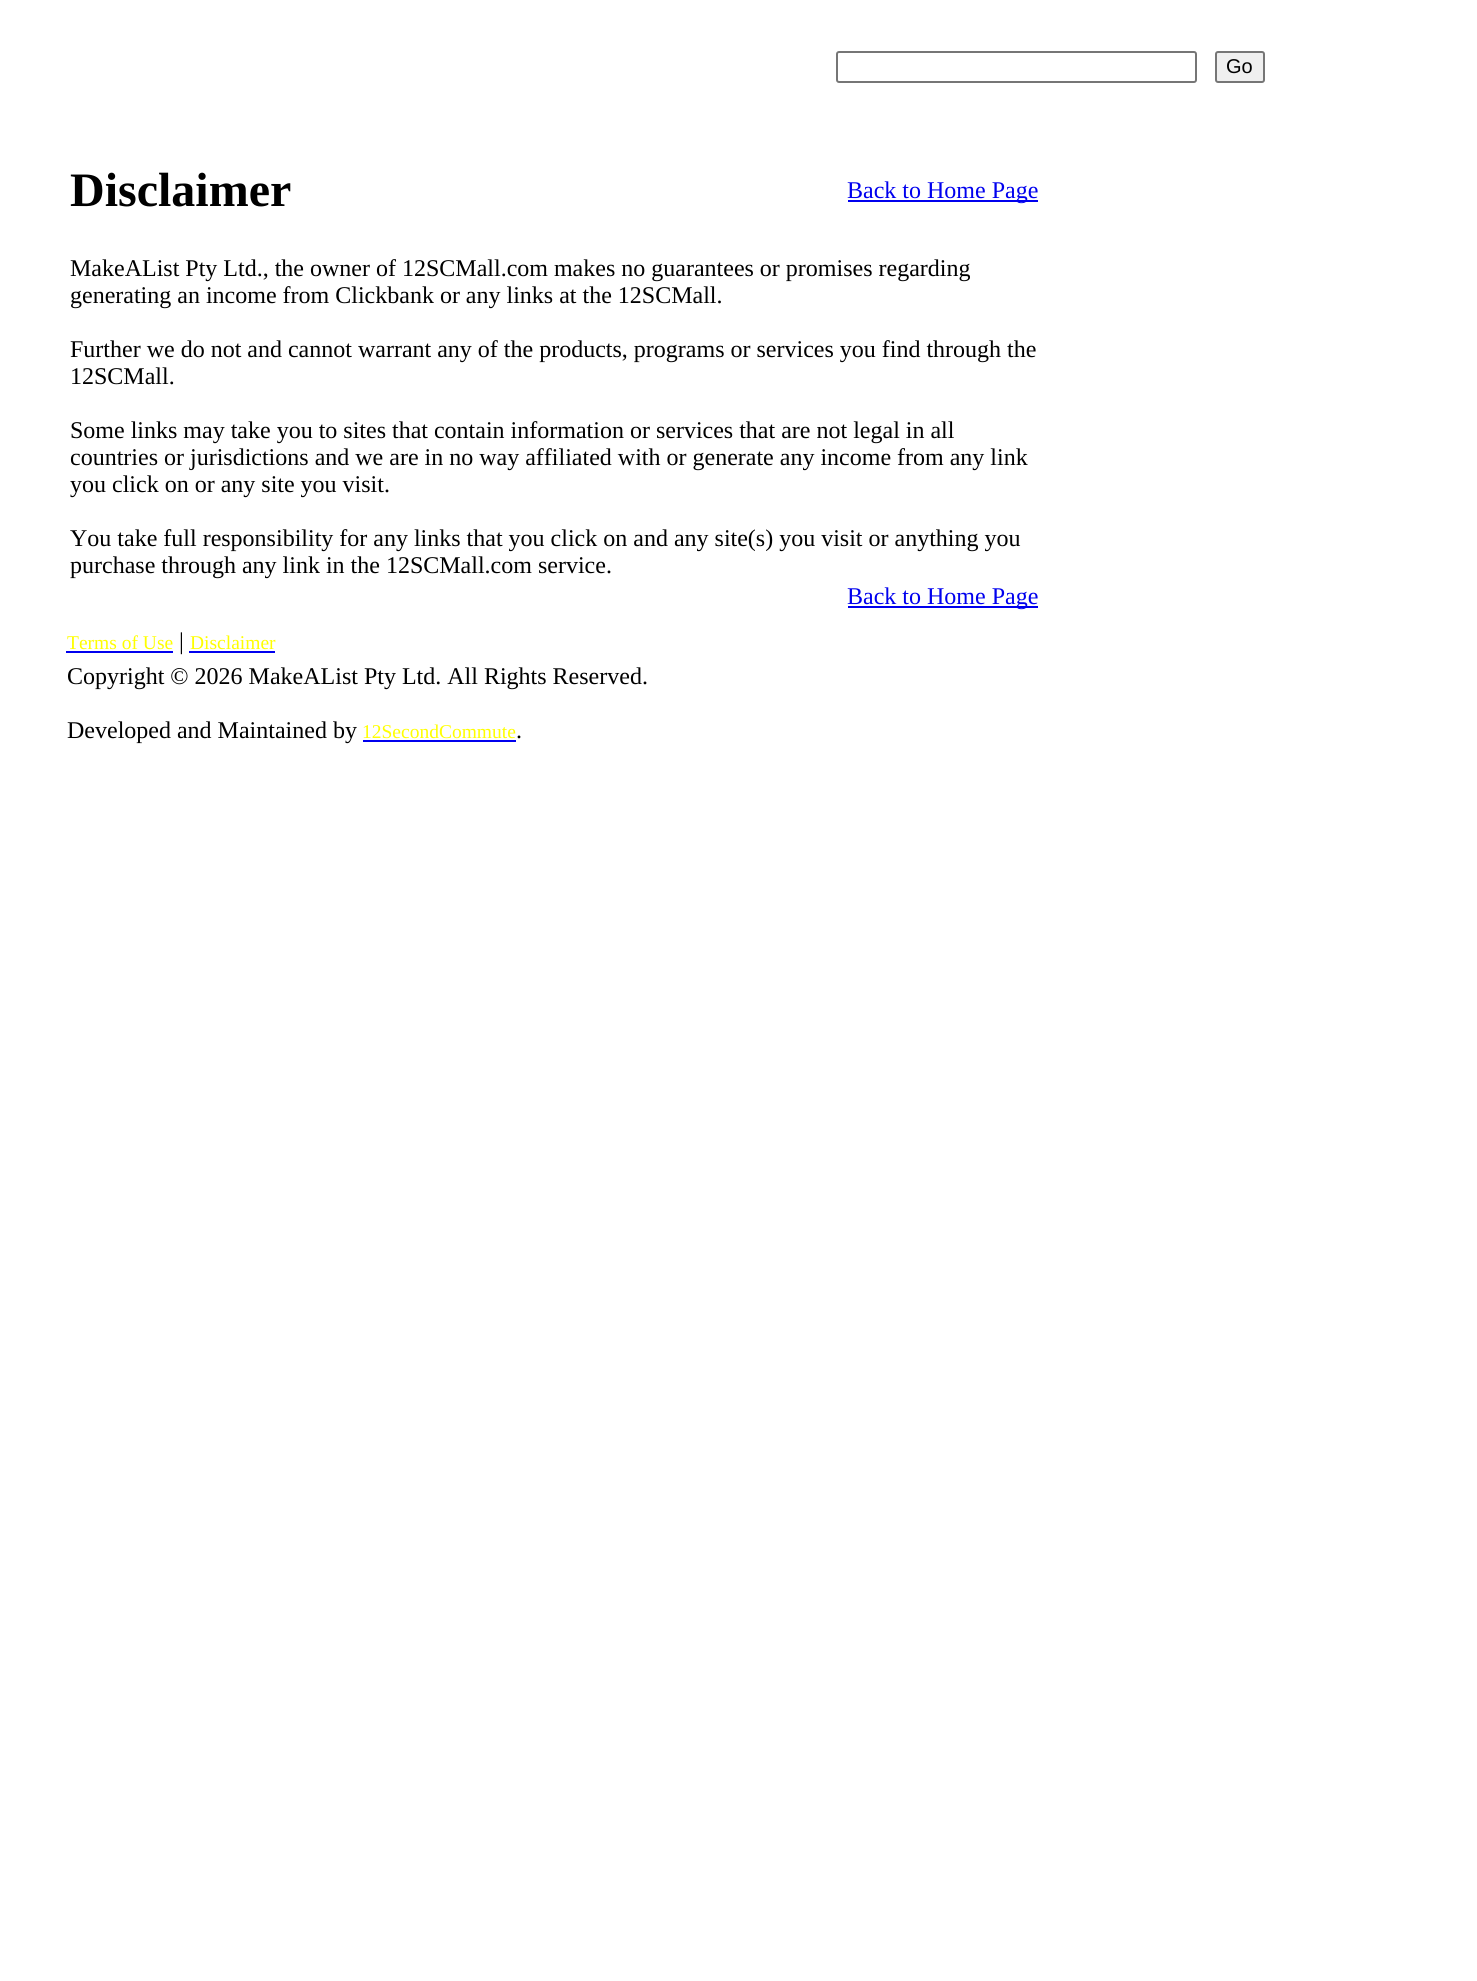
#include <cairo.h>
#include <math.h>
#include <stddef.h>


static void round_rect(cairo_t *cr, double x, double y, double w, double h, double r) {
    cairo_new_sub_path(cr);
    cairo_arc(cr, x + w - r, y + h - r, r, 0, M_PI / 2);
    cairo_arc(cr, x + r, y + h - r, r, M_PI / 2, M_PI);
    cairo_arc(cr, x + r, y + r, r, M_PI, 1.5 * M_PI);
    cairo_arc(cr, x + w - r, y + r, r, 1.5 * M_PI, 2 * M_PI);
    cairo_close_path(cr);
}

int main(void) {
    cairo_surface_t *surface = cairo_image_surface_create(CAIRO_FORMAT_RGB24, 1477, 1981);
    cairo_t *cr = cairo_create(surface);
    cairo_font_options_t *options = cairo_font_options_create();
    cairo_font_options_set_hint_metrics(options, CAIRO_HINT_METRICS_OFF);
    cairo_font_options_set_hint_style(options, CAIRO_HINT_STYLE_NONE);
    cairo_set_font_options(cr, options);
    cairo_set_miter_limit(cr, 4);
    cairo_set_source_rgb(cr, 1, 1, 1);
    cairo_paint(cr);
    round_rect(cr, 837, 52, 359, 30, 2);
    cairo_set_source_rgb(cr, 0.463, 0.463, 0.463);
    cairo_stroke(cr);
    cairo_set_source_rgb(cr, 0.937, 0.937, 0.937);
    round_rect(cr, 1216, 52, 48, 30, 2);
    cairo_fill_preserve(cr);
    cairo_set_source_rgb(cr, 0.463, 0.463, 0.463);
    cairo_stroke(cr);
    cairo_select_font_face(cr, "Liberation Sans", CAIRO_FONT_SLANT_NORMAL, CAIRO_FONT_WEIGHT_NORMAL);
    cairo_set_font_size(cr, 20);
    cairo_set_source_rgb(cr, 0, 0, 0);
    cairo_move_to(cr, 1226, 73);
    cairo_show_text(cr, "Go");
    cairo_select_font_face(cr, "Liberation Serif", CAIRO_FONT_SLANT_NORMAL, CAIRO_FONT_WEIGHT_BOLD);
    cairo_set_font_size(cr, 48);
    cairo_move_to(cr, 70, 206);
    cairo_show_text(cr, "Disclaimer");
    cairo_set_source_rgb(cr, 0, 0, 0.933);
    cairo_rectangle(cr, 848, 200, 190, 2);
    cairo_fill(cr);
    cairo_select_font_face(cr, "Liberation Serif", CAIRO_FONT_SLANT_NORMAL, CAIRO_FONT_WEIGHT_NORMAL);
    cairo_set_font_size(cr, 24);
    cairo_move_to(cr, 847, 198);
    cairo_show_text(cr, "Back to Home Page");
    cairo_set_source_rgb(cr, 0, 0, 0);
    cairo_move_to(cr, 70, 276);
    cairo_show_text(cr, "MakeAList Pty Ltd., the owner of 12SCMall.com makes no guarantees or promises regarding");
    cairo_move_to(cr, 70, 303);
    cairo_show_text(cr, "generating an income from Clickbank or any links at the 12SCMall.");
    cairo_move_to(cr, 70, 357);
    cairo_show_text(cr, "Further we do not and cannot warrant any of the products, programs or services you find through the");
    cairo_move_to(cr, 70, 384);
    cairo_show_text(cr, "12SCMall.");
    cairo_move_to(cr, 70, 438);
    cairo_show_text(cr, "Some links may take you to sites that contain information or services that are not legal in all");
    cairo_move_to(cr, 70, 465);
    cairo_show_text(cr, "countries or jurisdictions and we are in no way affiliated with or generate any income from any link");
    cairo_move_to(cr, 70, 492);
    cairo_show_text(cr, "you click on or any site you visit.");
    cairo_move_to(cr, 70, 546);
    cairo_show_text(cr, "You take full responsibility for any links that you click on and any site(s) you visit or anything you");
    cairo_move_to(cr, 70, 573);
    cairo_show_text(cr, "purchase through any link in the 12SCMall.com service.");
    cairo_set_source_rgb(cr, 0, 0, 0.933);
    cairo_rectangle(cr, 848, 606, 190, 2);
    cairo_fill(cr);
    cairo_move_to(cr, 847, 604);
    cairo_show_text(cr, "Back to Home Page");
    cairo_set_font_size(cr, 19.5);
    cairo_set_source_rgb(cr, 1, 1, 0);
    cairo_move_to(cr, 67, 649);
    cairo_show_text(cr, "Terms of Use");
    cairo_set_source_rgb(cr, 0, 0, 0.933);
    cairo_rectangle(cr, 66, 651, 107, 2);
    cairo_fill(cr);
    cairo_set_font_size(cr, 24);
    cairo_set_source_rgb(cr, 0, 0, 0);
    cairo_move_to(cr, 179, 649);
    cairo_show_text(cr, "|");
    cairo_set_font_size(cr, 19.5);
    cairo_set_source_rgb(cr, 1, 1, 0);
    cairo_move_to(cr, 190, 649);
    cairo_show_text(cr, "Disclaimer");
    cairo_set_source_rgb(cr, 0, 0, 0.933);
    cairo_rectangle(cr, 189, 651, 86, 2);
    cairo_fill(cr);
    cairo_set_font_size(cr, 24);
    cairo_set_source_rgb(cr, 0, 0, 0);
    cairo_move_to(cr, 67, 684);
    cairo_show_text(cr, "Copyright © 2026 MakeAList Pty Ltd. All Rights Reserved.");
    cairo_move_to(cr, 67, 738);
    cairo_show_text(cr, "Developed and Maintained by");
    cairo_set_font_size(cr, 19.5);
    cairo_set_source_rgb(cr, 1, 1, 0);
    cairo_move_to(cr, 362, 738);
    cairo_show_text(cr, "12SecondCommute");
    cairo_set_source_rgb(cr, 0, 0, 0.933);
    cairo_rectangle(cr, 363, 740, 153, 2);
    cairo_fill(cr);
    cairo_set_font_size(cr, 24);
    cairo_set_source_rgb(cr, 0, 0, 0);
    cairo_move_to(cr, 516, 738);
    cairo_show_text(cr, ".");
    cairo_surface_write_to_png(surface, "page.png");
    cairo_font_options_destroy(options);
    cairo_destroy(cr);
    cairo_surface_destroy(surface);
    return 0;
}
